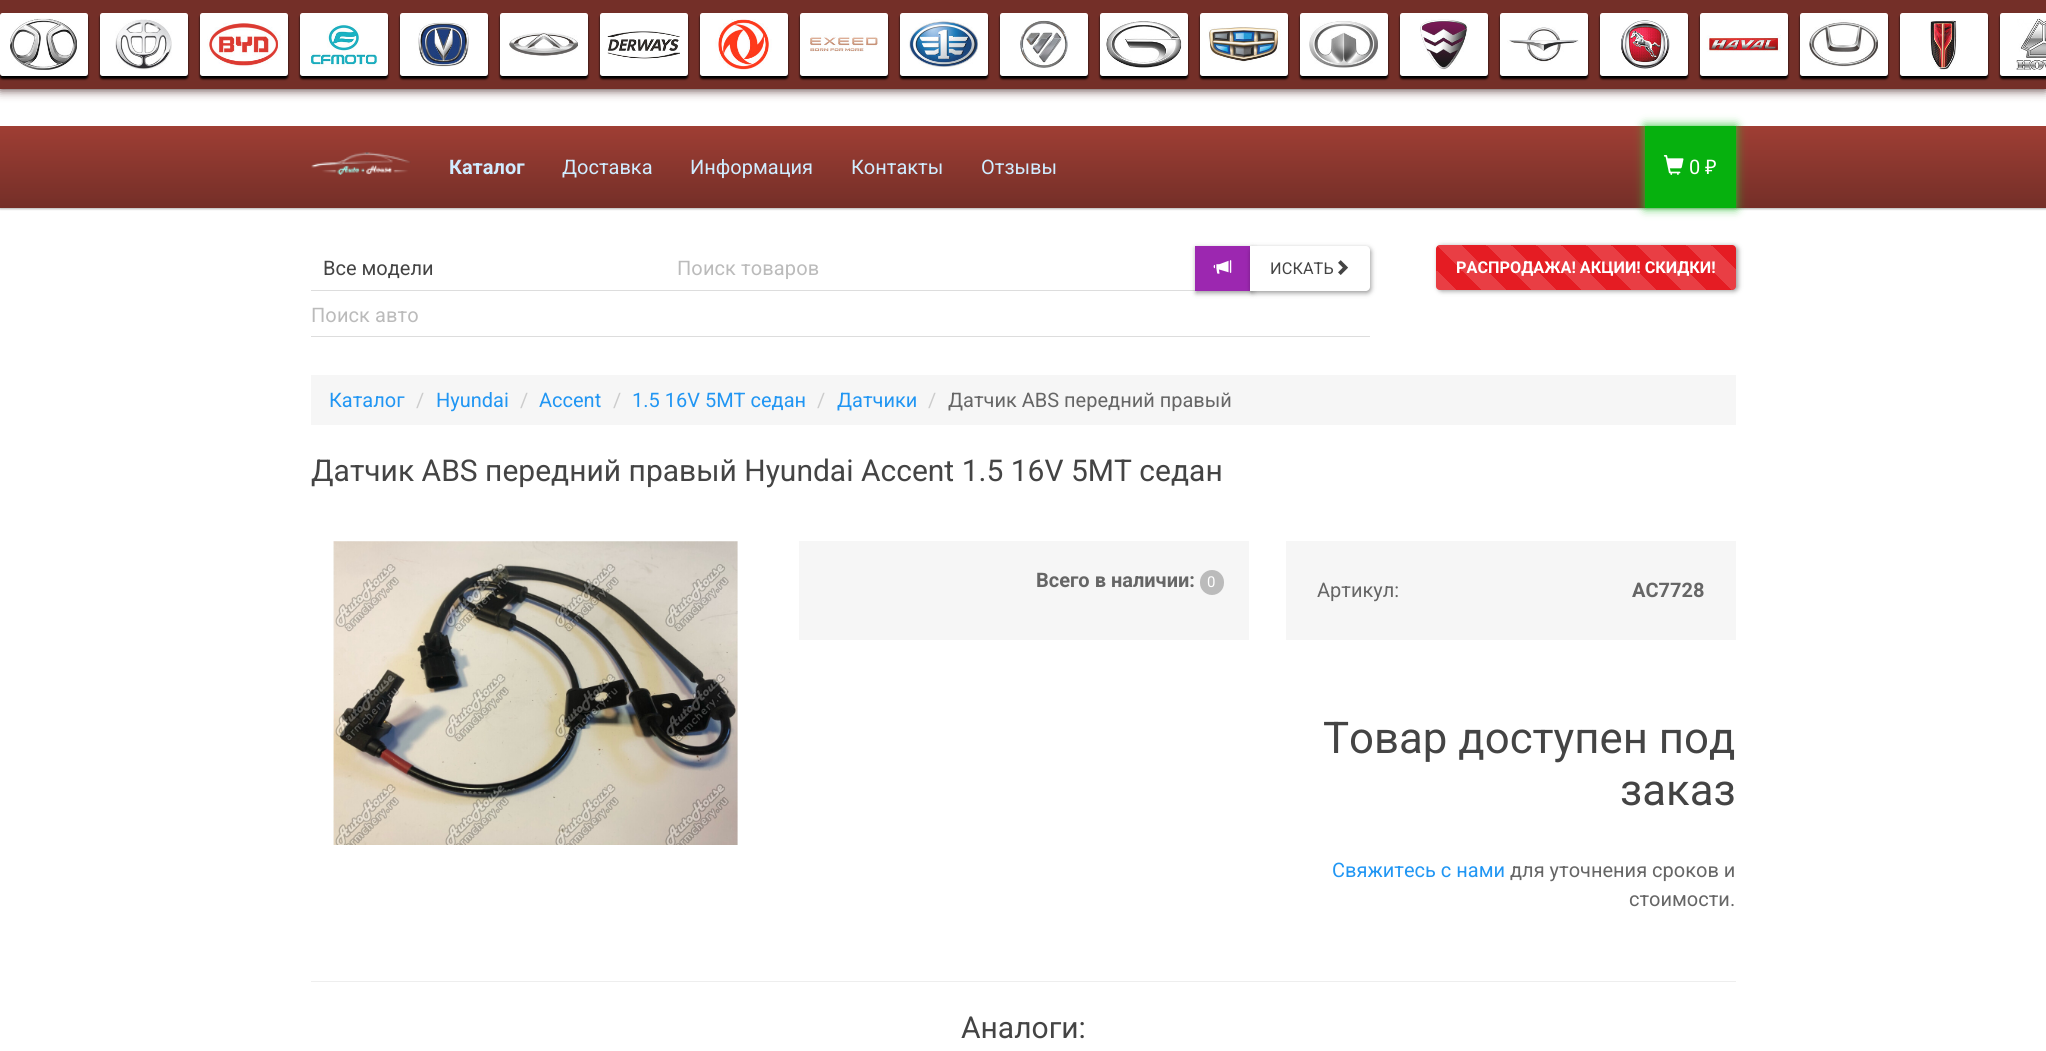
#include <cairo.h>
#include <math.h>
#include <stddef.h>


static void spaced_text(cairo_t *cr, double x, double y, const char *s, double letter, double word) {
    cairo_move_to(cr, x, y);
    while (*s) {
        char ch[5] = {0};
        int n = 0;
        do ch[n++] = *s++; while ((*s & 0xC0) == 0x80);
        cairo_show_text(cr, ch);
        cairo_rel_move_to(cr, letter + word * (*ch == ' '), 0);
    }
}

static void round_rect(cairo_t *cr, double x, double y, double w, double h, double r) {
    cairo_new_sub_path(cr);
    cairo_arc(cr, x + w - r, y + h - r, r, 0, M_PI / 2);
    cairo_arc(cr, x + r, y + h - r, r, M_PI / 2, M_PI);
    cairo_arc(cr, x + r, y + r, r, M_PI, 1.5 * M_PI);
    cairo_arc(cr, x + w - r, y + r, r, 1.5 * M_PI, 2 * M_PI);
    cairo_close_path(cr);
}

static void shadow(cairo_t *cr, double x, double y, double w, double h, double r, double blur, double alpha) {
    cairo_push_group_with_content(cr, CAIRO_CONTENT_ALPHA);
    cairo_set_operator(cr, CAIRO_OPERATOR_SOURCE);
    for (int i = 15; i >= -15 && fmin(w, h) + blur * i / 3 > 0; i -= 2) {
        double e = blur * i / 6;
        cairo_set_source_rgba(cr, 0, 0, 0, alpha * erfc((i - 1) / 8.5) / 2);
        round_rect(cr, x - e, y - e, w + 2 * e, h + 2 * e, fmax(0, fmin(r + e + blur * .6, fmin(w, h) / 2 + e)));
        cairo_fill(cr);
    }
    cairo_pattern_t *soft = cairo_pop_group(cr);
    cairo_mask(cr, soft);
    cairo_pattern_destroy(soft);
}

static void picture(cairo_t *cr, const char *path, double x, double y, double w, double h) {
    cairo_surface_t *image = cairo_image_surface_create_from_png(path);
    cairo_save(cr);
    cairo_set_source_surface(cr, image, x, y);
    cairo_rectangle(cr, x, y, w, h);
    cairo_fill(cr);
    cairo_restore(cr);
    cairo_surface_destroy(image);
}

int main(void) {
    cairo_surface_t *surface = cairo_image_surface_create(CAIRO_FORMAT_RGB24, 2046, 1051);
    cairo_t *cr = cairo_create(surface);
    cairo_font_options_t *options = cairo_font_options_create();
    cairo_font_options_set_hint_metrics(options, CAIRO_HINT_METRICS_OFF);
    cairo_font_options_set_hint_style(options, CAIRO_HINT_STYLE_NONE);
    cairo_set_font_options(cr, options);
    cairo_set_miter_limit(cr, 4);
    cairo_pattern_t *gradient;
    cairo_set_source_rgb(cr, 1, 1, 1);
    cairo_paint(cr);
    cairo_set_source_rgb(cr, 0.22, 0.075, 0.075);
    shadow(cr, 0, 0, 2046, 89, 0, 5.5, 1);
    cairo_set_source_rgb(cr, 0.6, 0.6, 0.6);
    shadow(cr, 0, 0, 2046, 89, 6, 1, 1);
    cairo_set_source_rgb(cr, 0.455, 0.184, 0.157);
    cairo_rectangle(cr, 0, 0, 2046, 89);
    cairo_fill(cr);
    cairo_set_source_rgb(cr, 0, 0, 0);
    shadow(cr, 0, 15, 88, 64, 2.5, 1, 1);
    cairo_set_source_rgb(cr, 1, 1, 1);
    round_rect(cr, 0, 13, 88, 63, 2.5);
    cairo_fill(cr);
    picture(cr, "img1.png", 10, 18, 67, 52);
    cairo_set_source_rgb(cr, 0, 0, 0);
    shadow(cr, 100, 15, 88, 64, 2.5, 1, 1);
    cairo_set_source_rgb(cr, 1, 1, 1);
    round_rect(cr, 100, 13, 88, 63, 2.5);
    cairo_fill(cr);
    picture(cr, "img2.png", 115, 19, 57, 51);
    cairo_set_source_rgb(cr, 0, 0, 0);
    shadow(cr, 200, 15, 88, 64, 2.5, 1, 1);
    cairo_set_source_rgb(cr, 1, 1, 1);
    round_rect(cr, 200, 13, 88, 63, 2.5);
    cairo_fill(cr);
    picture(cr, "img3.png", 207, 23, 74, 44);
    cairo_set_source_rgb(cr, 0, 0, 0);
    shadow(cr, 300, 15, 88, 64, 2.5, 1, 1);
    cairo_set_source_rgb(cr, 1, 1, 1);
    round_rect(cr, 300, 13, 88, 63, 2.5);
    cairo_fill(cr);
    picture(cr, "img4.png", 310, 23, 68, 45);
    cairo_set_source_rgb(cr, 0, 0, 0);
    shadow(cr, 400, 15, 88, 64, 2.5, 1, 1);
    cairo_set_source_rgb(cr, 1, 1, 1);
    round_rect(cr, 400, 13, 88, 63, 2.5);
    cairo_fill(cr);
    picture(cr, "img5.png", 418, 22, 51, 45);
    cairo_set_source_rgb(cr, 0, 0, 0);
    shadow(cr, 500, 15, 88, 64, 2.5, 1, 1);
    cairo_set_source_rgb(cr, 1, 1, 1);
    round_rect(cr, 500, 13, 88, 63, 2.5);
    cairo_fill(cr);
    picture(cr, "img6.png", 509, 32, 69, 24);
    cairo_set_source_rgb(cr, 0, 0, 0);
    shadow(cr, 600, 15, 88, 64, 2.5, 1, 1);
    cairo_set_source_rgb(cr, 1, 1, 1);
    round_rect(cr, 600, 13, 88, 63, 2.5);
    cairo_fill(cr);
    picture(cr, "img7.png", 607, 31, 73, 28);
    cairo_set_source_rgb(cr, 0, 0, 0);
    shadow(cr, 700, 15, 88, 64, 2.5, 1, 1);
    cairo_set_source_rgb(cr, 1, 1, 1);
    round_rect(cr, 700, 13, 88, 63, 2.5);
    cairo_fill(cr);
    picture(cr, "img8.png", 715, 19, 57, 51);
    cairo_set_source_rgb(cr, 0, 0, 0);
    shadow(cr, 800, 15, 88, 64, 2.5, 1, 1);
    cairo_set_source_rgb(cr, 1, 1, 1);
    round_rect(cr, 800, 13, 88, 63, 2.5);
    cairo_fill(cr);
    picture(cr, "img9.png", 810, 35, 68, 17);
    cairo_set_source_rgb(cr, 0, 0, 0);
    shadow(cr, 900, 15, 88, 64, 2.5, 1, 1);
    cairo_set_source_rgb(cr, 1, 1, 1);
    round_rect(cr, 900, 13, 88, 63, 2.5);
    cairo_fill(cr);
    picture(cr, "img10.png", 908, 19, 73, 49);
    cairo_set_source_rgb(cr, 0, 0, 0);
    shadow(cr, 1000, 15, 88, 64, 2.5, 1, 1);
    cairo_set_source_rgb(cr, 1, 1, 1);
    round_rect(cr, 1000, 13, 88, 63, 2.5);
    cairo_fill(cr);
    picture(cr, "img11.png", 1020, 20, 48, 48);
    cairo_set_source_rgb(cr, 0, 0, 0);
    shadow(cr, 1100, 15, 88, 64, 2.5, 1, 1);
    cairo_set_source_rgb(cr, 1, 1, 1);
    round_rect(cr, 1100, 13, 88, 63, 2.5);
    cairo_fill(cr);
    picture(cr, "img12.png", 1106, 21, 76, 47);
    cairo_set_source_rgb(cr, 0, 0, 0);
    shadow(cr, 1200, 15, 88, 64, 2.5, 1, 1);
    cairo_set_source_rgb(cr, 1, 1, 1);
    round_rect(cr, 1200, 13, 88, 63, 2.5);
    cairo_fill(cr);
    picture(cr, "img13.png", 1208, 27, 73, 36);
    cairo_set_source_rgb(cr, 0, 0, 0);
    shadow(cr, 1300, 15, 88, 64, 2.5, 1, 1);
    cairo_set_source_rgb(cr, 1, 1, 1);
    round_rect(cr, 1300, 13, 88, 63, 2.5);
    cairo_fill(cr);
    picture(cr, "img14.png", 1309, 21, 69, 47);
    cairo_set_source_rgb(cr, 0, 0, 0);
    shadow(cr, 1400, 15, 88, 64, 2.5, 1, 1);
    cairo_set_source_rgb(cr, 1, 1, 1);
    round_rect(cr, 1400, 13, 88, 63, 2.5);
    cairo_fill(cr);
    picture(cr, "img15.png", 1420, 19, 48, 51);
    cairo_set_source_rgb(cr, 0, 0, 0);
    shadow(cr, 1500, 15, 88, 64, 2.5, 1, 1);
    cairo_set_source_rgb(cr, 1, 1, 1);
    round_rect(cr, 1500, 13, 88, 63, 2.5);
    cairo_fill(cr);
    picture(cr, "img16.png", 1507, 27, 72, 37);
    cairo_set_source_rgb(cr, 0, 0, 0);
    shadow(cr, 1600, 15, 88, 64, 2.5, 1, 1);
    cairo_set_source_rgb(cr, 1, 1, 1);
    round_rect(cr, 1600, 13, 88, 63, 2.5);
    cairo_fill(cr);
    picture(cr, "img17.png", 1621, 20, 49, 49);
    cairo_set_source_rgb(cr, 0, 0, 0);
    shadow(cr, 1700, 15, 88, 64, 2.5, 1, 1);
    cairo_set_source_rgb(cr, 1, 1, 1);
    round_rect(cr, 1700, 13, 88, 63, 2.5);
    cairo_fill(cr);
    picture(cr, "img18.png", 1706, 35, 75, 17);
    cairo_set_source_rgb(cr, 0, 0, 0);
    shadow(cr, 1800, 15, 88, 64, 2.5, 1, 1);
    cairo_set_source_rgb(cr, 1, 1, 1);
    round_rect(cr, 1800, 13, 88, 63, 2.5);
    cairo_fill(cr);
    picture(cr, "img19.png", 1809, 19, 70, 48);
    cairo_set_source_rgb(cr, 0, 0, 0);
    shadow(cr, 1900, 15, 88, 64, 2.5, 1, 1);
    cairo_set_source_rgb(cr, 1, 1, 1);
    round_rect(cr, 1900, 13, 88, 63, 2.5);
    cairo_fill(cr);
    picture(cr, "img20.png", 1930, 20, 27, 50);
    cairo_set_source_rgb(cr, 0, 0, 0);
    shadow(cr, 2000, 15, 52, 64, 2.5, 1, 1);
    cairo_set_source_rgb(cr, 1, 1, 1);
    cairo_new_path(cr);
    cairo_move_to(cr, 2002.5, 13);
    cairo_line_to(cr, 2046, 13);
    cairo_line_to(cr, 2046, 76);
    cairo_line_to(cr, 2002.5, 76);
    cairo_curve_to(cr, 2001, 76, 2000, 75, 2000, 73.5);
    cairo_line_to(cr, 2000, 15.5);
    cairo_curve_to(cr, 2000, 14, 2001, 13, 2002.5, 13);
    cairo_close_path(cr);
    cairo_fill(cr);
    picture(cr, "img21.png", 2016, 18, 30, 52);
    cairo_set_source_rgb(cr, 0, 0, 0);
    shadow(cr, 0, 128, 2046, 81, 0, 1, 0.3);
    gradient = cairo_pattern_create_linear(1023, 208, 1023, 126);
    cairo_pattern_add_color_stop_rgba(gradient, 0, 0.455, 0.184, 0.157, 1);
    cairo_pattern_add_color_stop_rgba(gradient, 1, 0.624, 0.243, 0.204, 1);
    cairo_set_source(cr, gradient);
    cairo_pattern_destroy(gradient);
    cairo_rectangle(cr, 0, 126, 2046, 82);
    cairo_fill(cr);
    picture(cr, "img22.png", 311, 152, 100, 23);
    cairo_select_font_face(cr, "Roboto", CAIRO_FONT_SLANT_NORMAL, CAIRO_FONT_WEIGHT_BOLD);
    cairo_set_font_size(cr, 20);
    cairo_set_source_rgb(cr, 0.816, 0.922, 1);
    cairo_move_to(cr, 449, 174);
    cairo_show_text(cr, "Каталог");
    cairo_select_font_face(cr, "Roboto", CAIRO_FONT_SLANT_NORMAL, CAIRO_FONT_WEIGHT_NORMAL);
    cairo_move_to(cr, 562, 174);
    cairo_show_text(cr, "Доставка");
    cairo_move_to(cr, 690, 174);
    cairo_show_text(cr, "Информация");
    cairo_move_to(cr, 851, 174);
    cairo_show_text(cr, "Контакты");
    cairo_move_to(cr, 981, 174);
    cairo_show_text(cr, "Отзывы");
    cairo_set_source_rgb(cr, 0.176, 0.761, 0.2);
    shadow(cr, 1645, 126, 91, 82, 0, 5, 1);
    cairo_set_source_rgb(cr, 0.027, 0.694, 0.055);
    cairo_rectangle(cr, 1645, 126, 91, 82);
    cairo_fill(cr);
    picture(cr, "img23.png", 1663, 155, 21, 20);
    cairo_set_source_rgb(cr, 1, 1, 1);
    cairo_move_to(cr, 1689, 174);
    cairo_show_text(cr, "0");
    cairo_select_font_face(cr, "Noto Sans", CAIRO_FONT_SLANT_NORMAL, CAIRO_FONT_WEIGHT_NORMAL);
    cairo_move_to(cr, 1705, 174);
    cairo_show_text(cr, "₽");
    cairo_set_source_rgb(cr, 0.867, 0.867, 0.867);
    cairo_rectangle(cr, 311, 290, 885, 1);
    cairo_fill(cr);
    cairo_select_font_face(cr, "Roboto", CAIRO_FONT_SLANT_NORMAL, CAIRO_FONT_WEIGHT_NORMAL);
    cairo_set_source_rgb(cr, 0.267, 0.267, 0.267);
    cairo_move_to(cr, 323, 275);
    cairo_show_text(cr, "Все модели");
    cairo_set_source_rgb(cr, 0.733, 0.733, 0.733);
    spaced_text(cr, 677, 275, "Поиск товаров", 0.1, 0);
    cairo_set_source_rgb(cr, 0, 0, 0);
    shadow(cr, 1196, 248, 57, 45, 0, 2.5, 0.4);
    cairo_set_source_rgb(cr, 0.612, 0.153, 0.69);
    cairo_rectangle(cr, 1195, 246, 55, 45);
    cairo_fill(cr);
    picture(cr, "img24.png", 1213, 260, 19, 14);
    cairo_set_source_rgb(cr, 0, 0, 0);
    shadow(cr, 1251, 248, 120, 45, 4, 2.5, 0.4);
    cairo_set_source_rgb(cr, 1, 1, 1);
    cairo_new_path(cr);
    cairo_move_to(cr, 1250, 246);
    cairo_line_to(cr, 1366, 246);
    cairo_curve_to(cr, 1368, 246, 1370, 248, 1370, 250);
    cairo_line_to(cr, 1370, 287);
    cairo_curve_to(cr, 1370, 289, 1368, 291, 1366, 291);
    cairo_line_to(cr, 1250, 291);
    cairo_close_path(cr);
    cairo_fill(cr);
    cairo_set_font_size(cr, 16.25);
    cairo_set_source_rgb(cr, 0.267, 0.267, 0.267);
    spaced_text(cr, 1270, 274, "ИСКАТЬ", 0.1, 0);
    picture(cr, "img25.png", 1338, 260, 11, 15);
    cairo_set_source_rgb(cr, 0.867, 0.867, 0.867);
    cairo_rectangle(cr, 311, 336, 1059, 1);
    cairo_fill(cr);
    cairo_set_font_size(cr, 20);
    cairo_set_source_rgb(cr, 0.733, 0.733, 0.733);
    spaced_text(cr, 311, 322, "Поиск авто", 0.1, 0);
    cairo_set_source_rgb(cr, 0, 0, 0);
    shadow(cr, 1438, 246, 300, 45, 4, 2.5, 0.4);
    cairo_set_source_rgb(cr, 0.898, 0.11, 0.137);
    round_rect(cr, 1436, 245, 300, 45, 4);
    cairo_fill(cr);
    gradient = cairo_pattern_create_linear(1436, 295, 1486, 245);
    cairo_pattern_add_color_stop_rgba(gradient, 0.25, 1, 1, 1, 0.15);
    cairo_pattern_add_color_stop_rgba(gradient, 0.25, 1, 1, 1, 0);
    cairo_pattern_add_color_stop_rgba(gradient, 0.5, 1, 1, 1, 0);
    cairo_pattern_add_color_stop_rgba(gradient, 0.5, 1, 1, 1, 0.15);
    cairo_pattern_add_color_stop_rgba(gradient, 0.75, 1, 1, 1, 0.15);
    cairo_pattern_add_color_stop_rgba(gradient, 0.75, 1, 1, 1, 0);
    cairo_pattern_add_color_stop_rgba(gradient, 1, 0, 0, 0, 0);
    cairo_set_source(cr, gradient);
    cairo_pattern_destroy(gradient);
    cairo_new_path(cr);
    cairo_move_to(cr, 1440, 245);
    cairo_line_to(cr, 1486, 245);
    cairo_line_to(cr, 1486, 290);
    cairo_line_to(cr, 1440, 290);
    cairo_curve_to(cr, 1438, 290, 1436, 288, 1436, 286);
    cairo_line_to(cr, 1436, 249);
    cairo_curve_to(cr, 1436, 247, 1438, 245, 1440, 245);
    cairo_close_path(cr);
    cairo_fill(cr);
    gradient = cairo_pattern_create_linear(1486, 295, 1536, 245);
    cairo_pattern_add_color_stop_rgba(gradient, 0.25, 0.914, 0.243, 0.267, 1);
    cairo_pattern_add_color_stop_rgba(gradient, 0.25, 0.898, 0.11, 0.137, 1);
    cairo_pattern_add_color_stop_rgba(gradient, 0.5, 0.898, 0.11, 0.137, 1);
    cairo_pattern_add_color_stop_rgba(gradient, 0.5, 0.914, 0.243, 0.267, 1);
    cairo_pattern_add_color_stop_rgba(gradient, 0.75, 0.914, 0.243, 0.267, 1);
    cairo_pattern_add_color_stop_rgba(gradient, 0.75, 0.898, 0.11, 0.137, 1);
    cairo_pattern_add_color_stop_rgba(gradient, 1, 0.898, 0.11, 0.137, 1);
    cairo_set_source(cr, gradient);
    cairo_pattern_destroy(gradient);
    cairo_rectangle(cr, 1486, 245, 50, 45);
    cairo_fill(cr);
    gradient = cairo_pattern_create_linear(1536, 295, 1586, 245);
    cairo_pattern_add_color_stop_rgba(gradient, 0.25, 0.914, 0.243, 0.267, 1);
    cairo_pattern_add_color_stop_rgba(gradient, 0.25, 0.898, 0.11, 0.137, 1);
    cairo_pattern_add_color_stop_rgba(gradient, 0.5, 0.898, 0.11, 0.137, 1);
    cairo_pattern_add_color_stop_rgba(gradient, 0.5, 0.914, 0.243, 0.267, 1);
    cairo_pattern_add_color_stop_rgba(gradient, 0.75, 0.914, 0.243, 0.267, 1);
    cairo_pattern_add_color_stop_rgba(gradient, 0.75, 0.898, 0.11, 0.137, 1);
    cairo_pattern_add_color_stop_rgba(gradient, 1, 0.898, 0.11, 0.137, 1);
    cairo_set_source(cr, gradient);
    cairo_pattern_destroy(gradient);
    cairo_rectangle(cr, 1536, 245, 50, 45);
    cairo_fill(cr);
    gradient = cairo_pattern_create_linear(1586, 295, 1636, 245);
    cairo_pattern_add_color_stop_rgba(gradient, 0.25, 0.914, 0.243, 0.267, 1);
    cairo_pattern_add_color_stop_rgba(gradient, 0.25, 0.898, 0.11, 0.137, 1);
    cairo_pattern_add_color_stop_rgba(gradient, 0.5, 0.898, 0.11, 0.137, 1);
    cairo_pattern_add_color_stop_rgba(gradient, 0.5, 0.914, 0.243, 0.267, 1);
    cairo_pattern_add_color_stop_rgba(gradient, 0.75, 0.914, 0.243, 0.267, 1);
    cairo_pattern_add_color_stop_rgba(gradient, 0.75, 0.898, 0.11, 0.137, 1);
    cairo_pattern_add_color_stop_rgba(gradient, 1, 0.898, 0.11, 0.137, 1);
    cairo_set_source(cr, gradient);
    cairo_pattern_destroy(gradient);
    cairo_rectangle(cr, 1586, 245, 50, 45);
    cairo_fill(cr);
    gradient = cairo_pattern_create_linear(1636, 295, 1686, 245);
    cairo_pattern_add_color_stop_rgba(gradient, 0.25, 0.914, 0.243, 0.267, 1);
    cairo_pattern_add_color_stop_rgba(gradient, 0.25, 0.898, 0.11, 0.137, 1);
    cairo_pattern_add_color_stop_rgba(gradient, 0.5, 0.898, 0.11, 0.137, 1);
    cairo_pattern_add_color_stop_rgba(gradient, 0.5, 0.914, 0.243, 0.267, 1);
    cairo_pattern_add_color_stop_rgba(gradient, 0.75, 0.914, 0.243, 0.267, 1);
    cairo_pattern_add_color_stop_rgba(gradient, 0.75, 0.898, 0.11, 0.137, 1);
    cairo_pattern_add_color_stop_rgba(gradient, 1, 0.898, 0.11, 0.137, 1);
    cairo_set_source(cr, gradient);
    cairo_pattern_destroy(gradient);
    cairo_rectangle(cr, 1636, 245, 50, 45);
    cairo_fill(cr);
    gradient = cairo_pattern_create_linear(1686, 295, 1736, 245);
    cairo_pattern_add_color_stop_rgba(gradient, 0.25, 1, 1, 1, 0.15);
    cairo_pattern_add_color_stop_rgba(gradient, 0.25, 1, 1, 1, 0);
    cairo_pattern_add_color_stop_rgba(gradient, 0.5, 1, 1, 1, 0);
    cairo_pattern_add_color_stop_rgba(gradient, 0.5, 1, 1, 1, 0.15);
    cairo_pattern_add_color_stop_rgba(gradient, 0.75, 1, 1, 1, 0.15);
    cairo_pattern_add_color_stop_rgba(gradient, 0.75, 1, 1, 1, 0);
    cairo_pattern_add_color_stop_rgba(gradient, 1, 0, 0, 0, 0);
    cairo_set_source(cr, gradient);
    cairo_pattern_destroy(gradient);
    cairo_new_path(cr);
    cairo_move_to(cr, 1686, 245);
    cairo_line_to(cr, 1732, 245);
    cairo_curve_to(cr, 1734, 245, 1736, 247, 1736, 249);
    cairo_line_to(cr, 1736, 286);
    cairo_curve_to(cr, 1736, 288, 1734, 290, 1732, 290);
    cairo_line_to(cr, 1686, 290);
    cairo_close_path(cr);
    cairo_fill(cr);
    cairo_select_font_face(cr, "Roboto", CAIRO_FONT_SLANT_NORMAL, CAIRO_FONT_WEIGHT_BOLD);
    cairo_set_font_size(cr, 16.25);
    cairo_set_source_rgb(cr, 1, 1, 1);
    cairo_move_to(cr, 1456, 273);
    cairo_show_text(cr, "РАСПРОДАЖА! АКЦИИ! СКИДКИ!");
    cairo_set_source_rgb(cr, 0.961, 0.961, 0.961);
    cairo_rectangle(cr, 311, 375, 1425, 50);
    cairo_fill(cr);
    cairo_select_font_face(cr, "Roboto", CAIRO_FONT_SLANT_NORMAL, CAIRO_FONT_WEIGHT_NORMAL);
    cairo_set_font_size(cr, 20);
    cairo_set_source_rgb(cr, 0.129, 0.588, 0.953);
    cairo_move_to(cr, 329, 407);
    cairo_show_text(cr, "Каталог");
    cairo_set_source_rgb(cr, 0.8, 0.8, 0.8);
    cairo_move_to(cr, 416, 407);
    cairo_show_text(cr, "/");
    cairo_set_source_rgb(cr, 0.129, 0.588, 0.953);
    cairo_move_to(cr, 436, 407);
    cairo_show_text(cr, "Hyundai");
    cairo_set_source_rgb(cr, 0.8, 0.8, 0.8);
    cairo_move_to(cr, 520, 407);
    cairo_show_text(cr, "/");
    cairo_set_source_rgb(cr, 0.129, 0.588, 0.953);
    cairo_move_to(cr, 539, 407);
    cairo_show_text(cr, "Accent");
    cairo_set_source_rgb(cr, 0.8, 0.8, 0.8);
    cairo_move_to(cr, 613, 407);
    cairo_show_text(cr, "/");
    cairo_set_source_rgb(cr, 0.129, 0.588, 0.953);
    cairo_move_to(cr, 632, 407);
    cairo_show_text(cr, "1.5 16V 5MT седан");
    cairo_set_source_rgb(cr, 0.8, 0.8, 0.8);
    cairo_move_to(cr, 817, 407);
    cairo_show_text(cr, "/");
    cairo_set_source_rgb(cr, 0.129, 0.588, 0.953);
    cairo_move_to(cr, 837, 407);
    cairo_show_text(cr, "Датчики");
    cairo_set_source_rgb(cr, 0.8, 0.8, 0.8);
    cairo_move_to(cr, 928, 407);
    cairo_show_text(cr, "/");
    cairo_set_source_rgb(cr, 0.4, 0.4, 0.4);
    cairo_move_to(cr, 948, 407);
    cairo_show_text(cr, "Датчик ABS передний правый");
    cairo_set_font_size(cr, 30);
    cairo_set_source_rgb(cr, 0.267, 0.267, 0.267);
    cairo_move_to(cr, 311, 481);
    cairo_show_text(cr, "Датчик ABS передний правый Hyundai Accent 1.5 16V 5MT седан");
    picture(cr, "img26.png", 333, 541, 405, 304);
    cairo_set_source_rgb(cr, 0.961, 0.961, 0.961);
    cairo_rectangle(cr, 799, 541, 450, 99);
    cairo_fill(cr);
    cairo_select_font_face(cr, "Roboto", CAIRO_FONT_SLANT_NORMAL, CAIRO_FONT_WEIGHT_BOLD);
    cairo_set_font_size(cr, 20);
    cairo_set_source_rgb(cr, 0.4, 0.4, 0.4);
    cairo_move_to(cr, 1036, 587);
    cairo_show_text(cr, "Всего в наличии:");
    cairo_set_source_rgb(cr, 0.733, 0.733, 0.733);
    round_rect(cr, 1200, 570, 24, 25, 12);
    cairo_fill(cr);
    cairo_select_font_face(cr, "Roboto", CAIRO_FONT_SLANT_NORMAL, CAIRO_FONT_WEIGHT_NORMAL);
    cairo_set_font_size(cr, 15);
    cairo_set_source_rgb(cr, 1, 1, 1);
    cairo_move_to(cr, 1207, 587);
    cairo_show_text(cr, "0");
    cairo_set_source_rgb(cr, 0.961, 0.961, 0.961);
    cairo_rectangle(cr, 1286, 541, 450, 99);
    cairo_fill(cr);
    cairo_set_font_size(cr, 20);
    cairo_set_source_rgb(cr, 0.4, 0.4, 0.4);
    cairo_move_to(cr, 1317, 597);
    cairo_show_text(cr, "Артикул:");
    cairo_select_font_face(cr, "Roboto", CAIRO_FONT_SLANT_NORMAL, CAIRO_FONT_WEIGHT_BOLD);
    cairo_move_to(cr, 1632, 597);
    cairo_show_text(cr, "AC7728");
    cairo_select_font_face(cr, "Roboto", CAIRO_FONT_SLANT_NORMAL, CAIRO_FONT_WEIGHT_NORMAL);
    cairo_set_font_size(cr, 43.75);
    cairo_set_source_rgb(cr, 0.267, 0.267, 0.267);
    cairo_move_to(cr, 1323, 753);
    cairo_show_text(cr, "Товар доступен под");
    cairo_move_to(cr, 1620, 805);
    cairo_show_text(cr, "заказ");
    cairo_set_font_size(cr, 20);
    cairo_set_source_rgb(cr, 0.129, 0.588, 0.953);
    cairo_move_to(cr, 1332, 877);
    cairo_show_text(cr, "Свяжитесь с нами");
    cairo_set_source_rgb(cr, 0.4, 0.4, 0.4);
    cairo_move_to(cr, 1510, 877);
    cairo_show_text(cr, "для уточнения сроков и");
    cairo_move_to(cr, 1629, 906);
    cairo_show_text(cr, "стоимости.");
    cairo_set_source_rgb(cr, 0.933, 0.933, 0.933);
    cairo_rectangle(cr, 311, 981, 1425, 1);
    cairo_fill(cr);
    cairo_set_font_size(cr, 30);
    cairo_set_source_rgb(cr, 0.267, 0.267, 0.267);
    cairo_move_to(cr, 961, 1038);
    cairo_show_text(cr, "Аналоги:");
    cairo_surface_write_to_png(surface, "page.png");
    cairo_font_options_destroy(options);
    cairo_destroy(cr);
    cairo_surface_destroy(surface);
    return 0;
}
